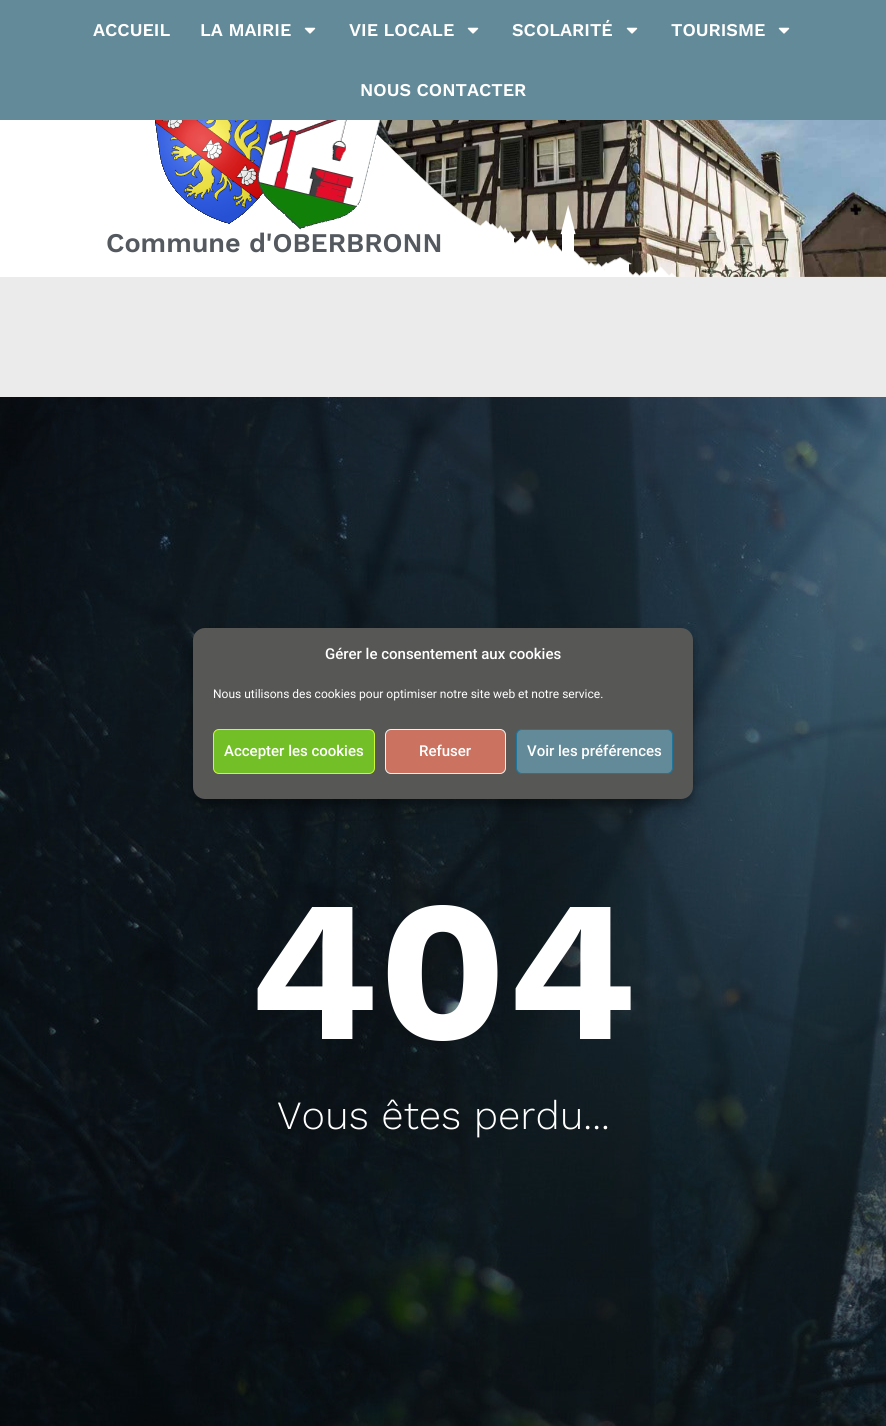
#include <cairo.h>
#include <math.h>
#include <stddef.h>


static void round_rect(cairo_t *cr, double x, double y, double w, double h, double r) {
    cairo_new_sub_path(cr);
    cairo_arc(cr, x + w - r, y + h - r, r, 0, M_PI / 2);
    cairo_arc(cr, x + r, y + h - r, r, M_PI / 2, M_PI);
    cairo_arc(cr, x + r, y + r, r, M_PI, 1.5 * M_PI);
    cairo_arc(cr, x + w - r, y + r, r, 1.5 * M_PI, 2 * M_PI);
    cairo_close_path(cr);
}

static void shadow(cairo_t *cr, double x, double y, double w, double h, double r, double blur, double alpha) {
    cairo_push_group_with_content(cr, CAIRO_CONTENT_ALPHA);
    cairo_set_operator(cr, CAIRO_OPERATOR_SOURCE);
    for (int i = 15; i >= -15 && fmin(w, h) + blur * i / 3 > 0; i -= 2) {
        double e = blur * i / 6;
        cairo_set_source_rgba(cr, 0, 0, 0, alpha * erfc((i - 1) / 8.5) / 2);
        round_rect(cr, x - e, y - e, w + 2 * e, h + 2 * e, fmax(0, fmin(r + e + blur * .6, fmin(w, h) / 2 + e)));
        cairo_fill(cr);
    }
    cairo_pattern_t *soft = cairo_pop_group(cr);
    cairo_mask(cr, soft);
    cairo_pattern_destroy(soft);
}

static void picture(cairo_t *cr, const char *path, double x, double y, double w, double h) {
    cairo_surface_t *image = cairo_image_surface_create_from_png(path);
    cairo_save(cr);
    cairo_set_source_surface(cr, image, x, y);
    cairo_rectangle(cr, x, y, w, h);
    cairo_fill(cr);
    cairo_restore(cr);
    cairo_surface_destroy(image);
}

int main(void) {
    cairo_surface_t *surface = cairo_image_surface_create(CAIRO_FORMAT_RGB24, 886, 1426);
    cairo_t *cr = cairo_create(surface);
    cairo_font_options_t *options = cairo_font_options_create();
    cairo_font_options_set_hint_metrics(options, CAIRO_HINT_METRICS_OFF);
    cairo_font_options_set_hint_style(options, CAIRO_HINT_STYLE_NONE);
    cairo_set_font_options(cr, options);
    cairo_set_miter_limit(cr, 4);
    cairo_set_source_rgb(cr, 0.918, 0.918, 0.918);
    cairo_paint(cr);
    cairo_set_source_rgb(cr, 0.388, 0.541, 0.6);
    cairo_rectangle(cr, 0, 0, 886, 120);
    cairo_fill(cr);
    cairo_select_font_face(cr, "Work Sans SemiBold", CAIRO_FONT_SLANT_NORMAL, CAIRO_FONT_WEIGHT_NORMAL);
    cairo_set_font_size(cr, 18);
    cairo_set_source_rgb(cr, 1, 1, 1);
    cairo_move_to(cr, 93, 36);
    cairo_show_text(cr, "ACCUEIL");
    cairo_move_to(cr, 200, 36);
    cairo_show_text(cr, "LA MAIRIE");
    picture(cr, "img1.png", 304, 27, 12, 7);
    cairo_move_to(cr, 349, 36);
    cairo_show_text(cr, "VIE LOCALE");
    picture(cr, "img1.png", 467, 27, 12, 7);
    cairo_move_to(cr, 512, 36);
    cairo_show_text(cr, "SCOLARITÉ");
    picture(cr, "img1.png", 626, 27, 12, 7);
    cairo_move_to(cr, 671, 36);
    cairo_show_text(cr, "TOURISME");
    picture(cr, "img1.png", 778, 27, 12, 7);
    cairo_move_to(cr, 360, 96);
    cairo_show_text(cr, "NOUS CONTACTER");
    picture(cr, "img4.png", 377, 120, 509, 157);
    picture(cr, "img2.png", 0, 120, 677, 157);
    picture(cr, "img3.png", 155, 120, 225, 110);
    cairo_set_font_size(cr, 27);
    cairo_set_source_rgb(cr, 0.329, 0.349, 0.373);
    cairo_move_to(cr, 106, 252);
    cairo_show_text(cr, "Commune d'OBERBRONN");
    picture(cr, "img5.png", 0, 397, 886, 1029);
    cairo_set_source_rgb(cr, 0, 0, 0);
    shadow(cr, 193, 634, 500, 171, 12, 3, 0.23);
    shadow(cr, 193, 638, 500, 171, 12, 10, 0.19);
    cairo_set_source_rgb(cr, 0.341, 0.341, 0.337);
    round_rect(cr, 193, 628, 500, 171, 12);
    cairo_fill(cr);
    cairo_select_font_face(cr, "Roboto Medium", CAIRO_FONT_SLANT_NORMAL, CAIRO_FONT_WEIGHT_NORMAL);
    cairo_set_font_size(cr, 15);
    cairo_set_source_rgb(cr, 1, 1, 1);
    cairo_move_to(cr, 325, 659);
    cairo_show_text(cr, "Gérer le consentement aux cookies");
    cairo_select_font_face(cr, "Roboto", CAIRO_FONT_SLANT_NORMAL, CAIRO_FONT_WEIGHT_NORMAL);
    cairo_set_font_size(cr, 12);
    cairo_move_to(cr, 213, 698);
    cairo_show_text(cr, "Nous utilisons des cookies pour optimiser notre site web et notre service.");
    cairo_set_source_rgb(cr, 0.451, 0.749, 0.157);
    round_rect(cr, 213.5, 729.5, 161, 44, 5.5);
    cairo_fill_preserve(cr);
    cairo_set_source_rgb(cr, 0.796, 0.976, 0.204);
    cairo_set_line_width(cr, 1);
    cairo_stroke(cr);
    cairo_select_font_face(cr, "Roboto Medium", CAIRO_FONT_SLANT_NORMAL, CAIRO_FONT_WEIGHT_NORMAL);
    cairo_set_font_size(cr, 15);
    cairo_set_source_rgb(cr, 1, 1, 1);
    cairo_move_to(cr, 224, 756);
    cairo_show_text(cr, "Accepter les cookies");
    cairo_set_source_rgb(cr, 0.796, 0.451, 0.376);
    round_rect(cr, 385.5, 729.5, 120, 44, 5.5);
    cairo_fill_preserve(cr);
    cairo_set_source_rgb(cr, 0.945, 0.945, 0.945);
    cairo_stroke(cr);
    cairo_set_source_rgb(cr, 1, 1, 1);
    cairo_move_to(cr, 419, 756);
    cairo_show_text(cr, "Refuser");
    cairo_set_source_rgb(cr, 0.388, 0.541, 0.6);
    round_rect(cr, 516.5, 729.5, 156, 44, 5.5);
    cairo_fill_preserve(cr);
    cairo_set_source_rgb(cr, 0.129, 0.459, 0.608);
    cairo_stroke(cr);
    cairo_set_source_rgb(cr, 1, 1, 1);
    cairo_move_to(cr, 527, 756);
    cairo_show_text(cr, "Voir les préférences");
    cairo_select_font_face(cr, "Work Sans", CAIRO_FONT_SLANT_NORMAL, CAIRO_FONT_WEIGHT_BOLD);
    cairo_set_font_size(cr, 200);
    cairo_move_to(cr, 249, 1039);
    cairo_show_text(cr, "404");
    cairo_select_font_face(cr, "Work Sans Light", CAIRO_FONT_SLANT_NORMAL, CAIRO_FONT_WEIGHT_NORMAL);
    cairo_set_font_size(cr, 40);
    cairo_move_to(cr, 277, 1129);
    cairo_show_text(cr, "Vous êtes perdu...");
    cairo_surface_write_to_png(surface, "page.png");
    cairo_font_options_destroy(options);
    cairo_destroy(cr);
    cairo_surface_destroy(surface);
    return 0;
}
